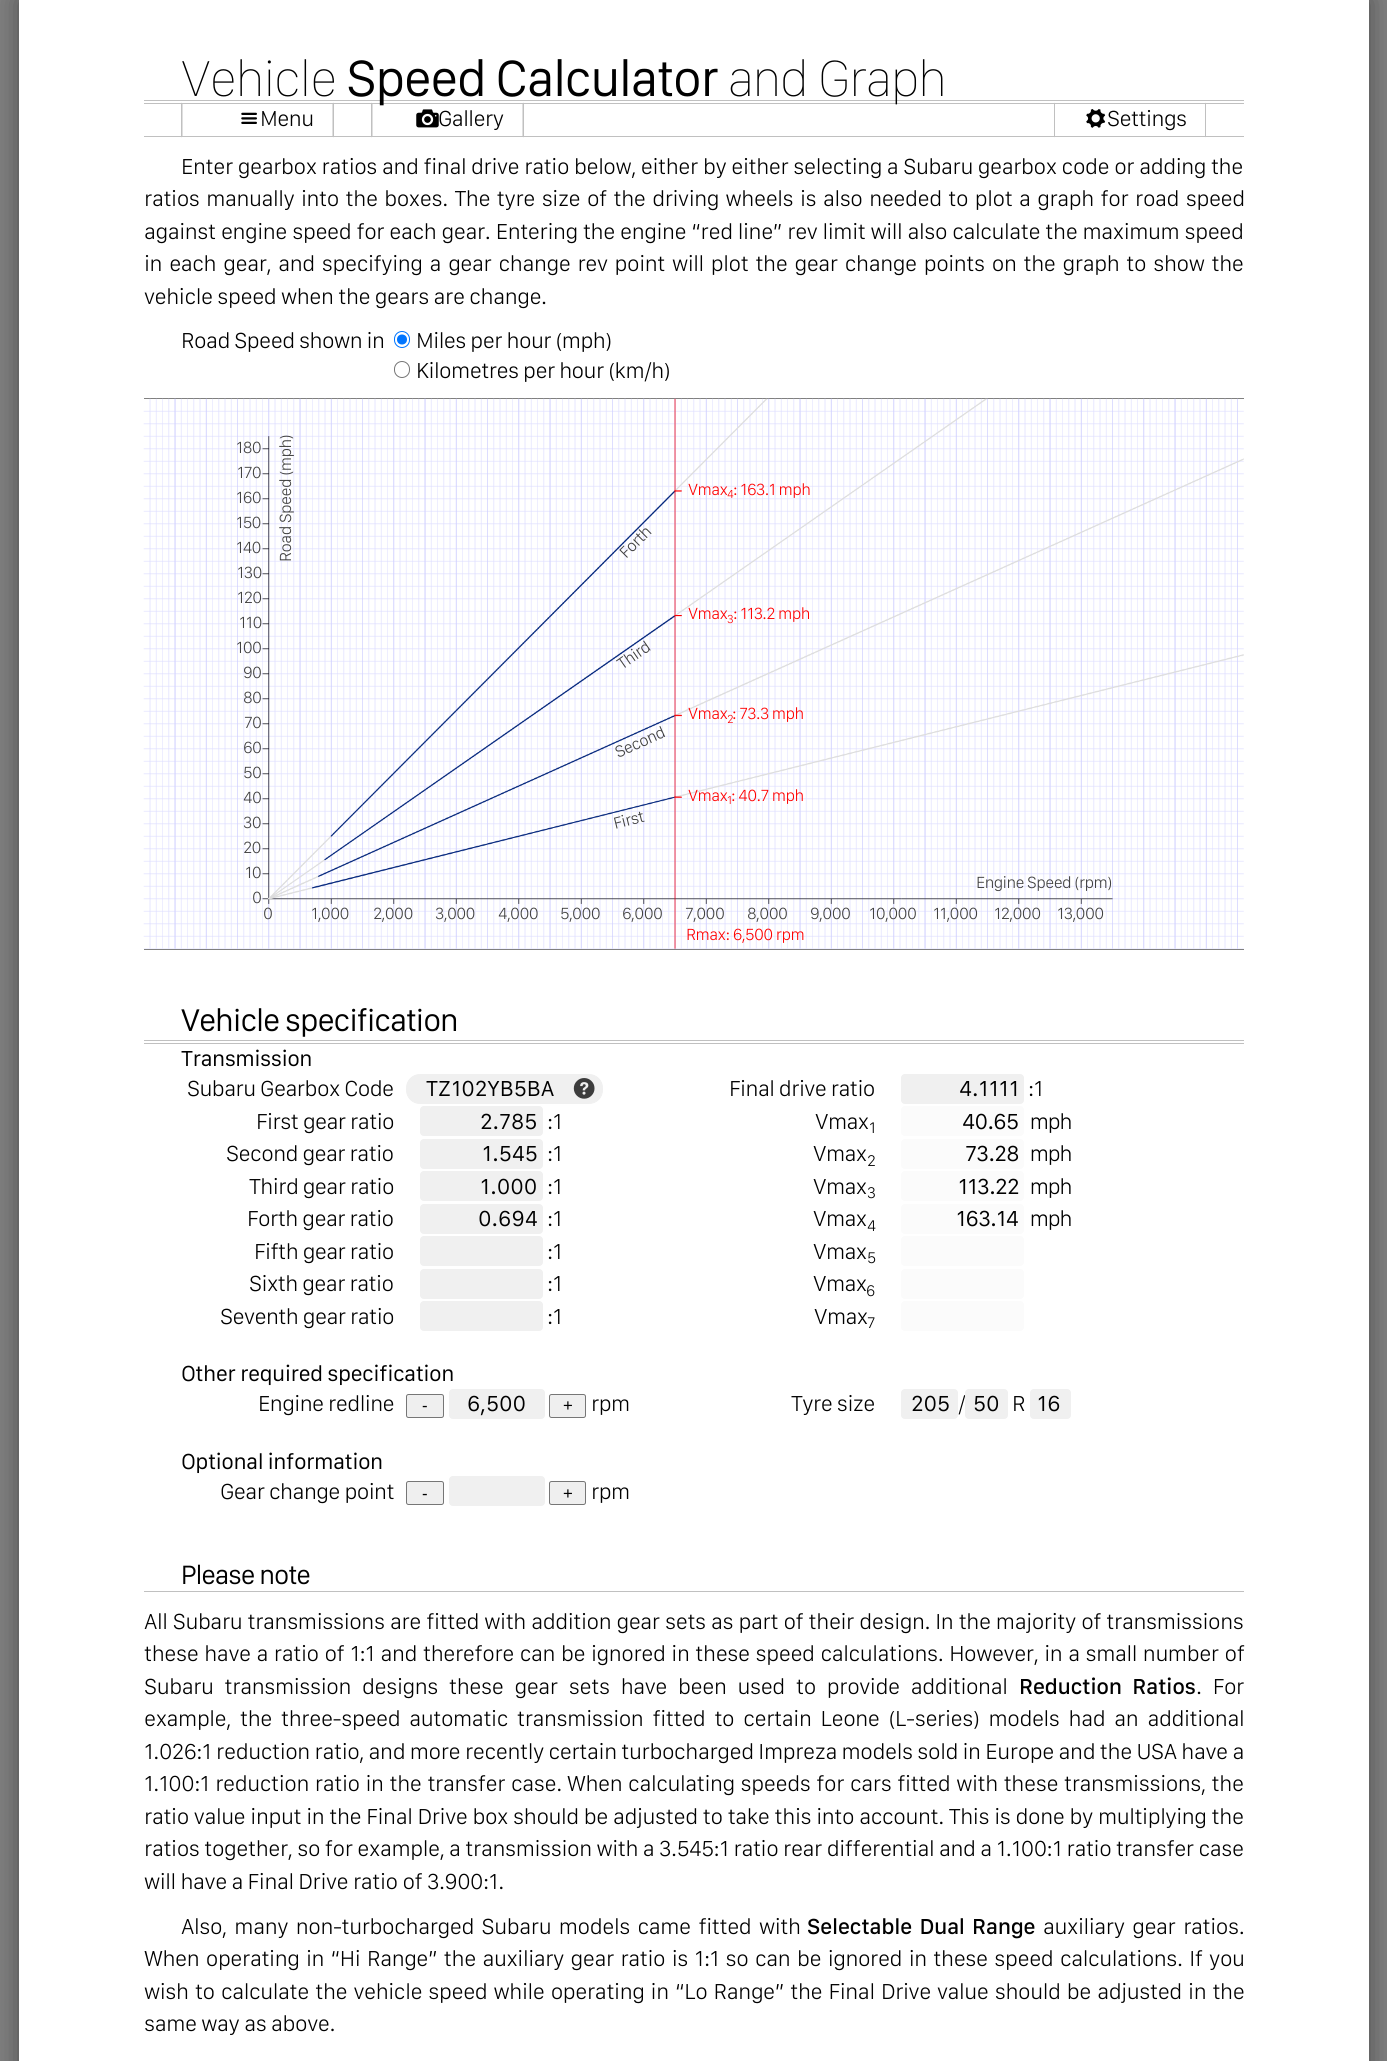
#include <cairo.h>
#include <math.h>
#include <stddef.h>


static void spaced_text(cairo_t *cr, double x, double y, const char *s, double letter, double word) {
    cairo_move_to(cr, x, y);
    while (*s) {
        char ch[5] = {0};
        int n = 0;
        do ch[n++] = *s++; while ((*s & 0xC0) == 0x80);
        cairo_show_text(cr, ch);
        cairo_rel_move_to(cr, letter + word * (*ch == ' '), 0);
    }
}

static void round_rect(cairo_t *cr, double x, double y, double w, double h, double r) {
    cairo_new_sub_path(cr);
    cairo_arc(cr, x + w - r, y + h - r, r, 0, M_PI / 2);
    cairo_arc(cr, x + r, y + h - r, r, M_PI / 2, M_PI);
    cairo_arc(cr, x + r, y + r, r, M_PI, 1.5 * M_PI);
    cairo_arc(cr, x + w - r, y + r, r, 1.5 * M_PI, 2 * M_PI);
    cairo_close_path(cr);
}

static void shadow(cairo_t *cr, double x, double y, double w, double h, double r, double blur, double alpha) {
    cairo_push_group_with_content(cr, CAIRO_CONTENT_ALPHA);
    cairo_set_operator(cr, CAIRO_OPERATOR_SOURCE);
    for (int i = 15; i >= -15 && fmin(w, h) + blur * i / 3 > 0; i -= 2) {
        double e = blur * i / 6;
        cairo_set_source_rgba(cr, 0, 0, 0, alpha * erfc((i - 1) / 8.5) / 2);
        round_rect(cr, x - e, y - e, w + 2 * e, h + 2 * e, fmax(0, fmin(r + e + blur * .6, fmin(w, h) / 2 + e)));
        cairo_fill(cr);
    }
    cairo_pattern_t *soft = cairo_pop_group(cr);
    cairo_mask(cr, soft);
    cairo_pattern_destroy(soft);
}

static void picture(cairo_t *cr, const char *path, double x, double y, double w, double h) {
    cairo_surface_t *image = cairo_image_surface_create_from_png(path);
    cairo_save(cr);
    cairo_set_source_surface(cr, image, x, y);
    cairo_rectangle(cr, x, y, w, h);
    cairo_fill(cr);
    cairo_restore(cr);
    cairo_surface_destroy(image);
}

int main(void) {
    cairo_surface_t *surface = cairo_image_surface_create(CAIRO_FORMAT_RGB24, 1387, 2061);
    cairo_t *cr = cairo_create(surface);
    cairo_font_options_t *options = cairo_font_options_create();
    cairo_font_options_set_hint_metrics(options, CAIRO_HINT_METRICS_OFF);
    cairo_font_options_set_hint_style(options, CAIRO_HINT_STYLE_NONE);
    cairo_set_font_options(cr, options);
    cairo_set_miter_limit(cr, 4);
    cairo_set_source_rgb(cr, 0.502, 0.502, 0.502);
    cairo_paint(cr);
    cairo_set_source_rgb(cr, 0, 0, 0);
    shadow(cr, 19, 0, 1350, 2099, 0, 12.5, 0.4);
    cairo_set_source_rgb(cr, 1, 1, 1);
    cairo_rectangle(cr, 19, 0, 1350, 2061);
    cairo_fill(cr);
    cairo_set_source_rgb(cr, 0.753, 0.753, 0.753);
    cairo_rectangle(cr, 144, 100, 1100, 1);
    cairo_fill(cr);
    cairo_rectangle(cr, 144, 103, 1100, 1);
    cairo_fill(cr);
    cairo_select_font_face(cr, "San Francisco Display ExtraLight", CAIRO_FONT_SLANT_NORMAL, CAIRO_FONT_WEIGHT_NORMAL);
    cairo_set_font_size(cr, 52.5);
    cairo_set_source_rgb(cr, 0, 0, 0);
    spaced_text(cr, 181, 96, "Vehicle", -0.6, 0);
    cairo_select_font_face(cr, "San Francisco Display", CAIRO_FONT_SLANT_NORMAL, CAIRO_FONT_WEIGHT_NORMAL);
    spaced_text(cr, 347, 96, "Speed Calculator", -0.6, 0);
    cairo_select_font_face(cr, "San Francisco Display ExtraLight", CAIRO_FONT_SLANT_NORMAL, CAIRO_FONT_WEIGHT_NORMAL);
    spaced_text(cr, 728, 96, "and Graph", -0.6, 0);
    cairo_set_source_rgb(cr, 0.753, 0.753, 0.753);
    cairo_rectangle(cr, 144, 136, 1100, 1);
    cairo_fill(cr);
    cairo_new_path(cr);
    cairo_move_to(cr, 334, 102.5);
    cairo_line_to(cr, 334, 137.5);
    cairo_line_to(cr, 332.5, 136);
    cairo_line_to(cr, 332.5, 104);
    cairo_close_path(cr);
    cairo_fill(cr);
    cairo_new_path(cr);
    cairo_move_to(cr, 181, 137.5);
    cairo_line_to(cr, 181, 102.5);
    cairo_line_to(cr, 182.5, 104);
    cairo_line_to(cr, 182.5, 136);
    cairo_close_path(cr);
    cairo_fill(cr);
    picture(cr, "img1.png", 241, 112, 16, 12);
    cairo_select_font_face(cr, "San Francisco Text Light", CAIRO_FONT_SLANT_NORMAL, CAIRO_FONT_WEIGHT_NORMAL);
    cairo_set_font_size(cr, 22.5);
    cairo_set_source_rgb(cr, 0, 0, 0);
    spaced_text(cr, 260, 126, "Menu", -0.6, 0);
    cairo_set_source_rgb(cr, 0.753, 0.753, 0.753);
    cairo_new_path(cr);
    cairo_move_to(cr, 524, 102.5);
    cairo_line_to(cr, 524, 137.5);
    cairo_line_to(cr, 522.5, 136);
    cairo_line_to(cr, 522.5, 104);
    cairo_close_path(cr);
    cairo_fill(cr);
    cairo_new_path(cr);
    cairo_move_to(cr, 371, 137.5);
    cairo_line_to(cr, 371, 102.5);
    cairo_line_to(cr, 372.5, 104);
    cairo_line_to(cr, 372.5, 136);
    cairo_close_path(cr);
    cairo_fill(cr);
    picture(cr, "img2.png", 416, 109, 23, 19);
    cairo_set_source_rgb(cr, 0, 0, 0);
    spaced_text(cr, 438, 126, "Gallery", -0.6, 0);
    cairo_set_source_rgb(cr, 0.753, 0.753, 0.753);
    cairo_new_path(cr);
    cairo_move_to(cr, 1206, 102.5);
    cairo_line_to(cr, 1206, 137.5);
    cairo_line_to(cr, 1205, 136);
    cairo_line_to(cr, 1205, 104);
    cairo_close_path(cr);
    cairo_fill(cr);
    cairo_new_path(cr);
    cairo_move_to(cr, 1054, 137.5);
    cairo_line_to(cr, 1054, 102.5);
    cairo_line_to(cr, 1055, 104);
    cairo_line_to(cr, 1055, 136);
    cairo_close_path(cr);
    cairo_fill(cr);
    picture(cr, "img3.png", 1086, 109, 20, 19);
    cairo_set_source_rgb(cr, 0, 0, 0);
    spaced_text(cr, 1107, 126, "Settings", -0.6, 0);
    spaced_text(cr, 181, 174, "Enter gearbox ratios and final drive ratio below, either by either selecting a Subaru gearbox code or adding the", -0.45, 0.3);
    spaced_text(cr, 144, 206, "ratios manually into the boxes. The tyre size of the driving wheels is also needed to plot a graph for road speed", -0.45, 2);
    spaced_text(cr, 144, 239, "against engine speed for each gear. Entering the engine “red line” rev limit will also calculate the maximum speed", -0.45, 0.5);
    spaced_text(cr, 144, 271, "in each gear, and specifying a gear change rev point will plot the gear change points on the graph to show the", -0.45, 2.4);
    spaced_text(cr, 144, 304, "vehicle speed when the gears are change.", -0.45, 0);
    spaced_text(cr, 181, 348, "Road Speed shown in", -0.6, 0);
    round_rect(cr, 394.5, 331.5, 15, 16, 7.5);
    cairo_set_source_rgb(cr, 0, 0.459, 1);
    cairo_set_line_width(cr, 1);
    cairo_stroke(cr);
    cairo_arc(cr, 402, 339.5, 5, 0, 2 * M_PI);
    cairo_fill(cr);
    cairo_set_source_rgb(cr, 0, 0, 0);
    spaced_text(cr, 416, 348, "Miles per hour (mph)", -0.6, 0);
    round_rect(cr, 394.5, 361.5, 15, 16, 7.5);
    cairo_set_source_rgb(cr, 0.463, 0.463, 0.463);
    cairo_stroke(cr);
    cairo_set_source_rgb(cr, 0, 0, 0);
    spaced_text(cr, 416, 378, "Kilometres per hour (km/h)", -0.6, 0);
    cairo_set_source_rgb(cr, 0.502, 0.502, 0.502);
    cairo_rectangle(cr, 144, 398, 1100, 1);
    cairo_fill(cr);
    cairo_rectangle(cr, 144, 949, 1100, 1);
    cairo_fill(cr);
    picture(cr, "img4.png", 143, 398, 1101, 551);
    picture(cr, "img5.png", 268, 398, 976, 551);
    cairo_set_font_size(cr, 16.75);
    cairo_set_source_rgb(cr, 0.251, 0.251, 0.251);
    spaced_text(cr, 236, 453, "180", -0.6, 0);
    spaced_text(cr, 237, 478, "170", -0.6, 0);
    spaced_text(cr, 236, 503, "160", -0.6, 0);
    spaced_text(cr, 236, 528, "150", -0.6, 0);
    spaced_text(cr, 236, 553, "140", -0.6, 0);
    spaced_text(cr, 237, 578, "130", -0.6, 0);
    spaced_text(cr, 237, 603, "120", -0.6, 0);
    spaced_text(cr, 239, 628, "110", -0.6, 0);
    spaced_text(cr, 236, 653, "100", -0.6, 0);
    spaced_text(cr, 243, 678, "90", -0.6, 0);
    spaced_text(cr, 243, 703, "80", -0.6, 0);
    spaced_text(cr, 244, 728, "70", -0.6, 0);
    spaced_text(cr, 243, 753, "60", -0.6, 0);
    spaced_text(cr, 243, 778, "50", -0.6, 0);
    spaced_text(cr, 243, 803, "40", -0.6, 0);
    spaced_text(cr, 243, 828, "30", -0.6, 0);
    spaced_text(cr, 243, 853, "20", -0.6, 0);
    spaced_text(cr, 245, 878, "10", -0.6, 0);
    spaced_text(cr, 252, 903, "0", -0.6, 0);
    cairo_save(cr);
    cairo_translate(cr, 291, 562);
    cairo_rotate(cr, -90 * M_PI / 180);
    spaced_text(cr, 0, 0, "Road Speed (mph)", -0.6, 0);
    cairo_restore(cr);
    cairo_set_source_rgb(cr, 1, 0, 0);
    spaced_text(cr, 688, 495, "Vmax", -0.6, 0);
    cairo_set_font_size(cr, 12);
    spaced_text(cr, 727, 498, "4", -0.6, 0);
    cairo_set_font_size(cr, 16.75);
    spaced_text(cr, 733, 495, ": 163.1 mph", -0.6, 0);
    cairo_set_source_rgb(cr, 0.251, 0.251, 0.251);
    cairo_save(cr);
    cairo_translate(cr, 626, 559);
    cairo_rotate(cr, -45.1 * M_PI / 180);
    spaced_text(cr, 0, 0, "Forth", -0.6, 0);
    cairo_restore(cr);
    cairo_save(cr);
    cairo_translate(cr, 622, 670);
    cairo_rotate(cr, -34.9 * M_PI / 180);
    spaced_text(cr, 0, 0, "Third", -0.6, 0);
    cairo_restore(cr);
    cairo_save(cr);
    cairo_translate(cr, 618, 758);
    cairo_rotate(cr, -24.3 * M_PI / 180);
    spaced_text(cr, 0, 0, "Second", -0.6, 0);
    cairo_restore(cr);
    cairo_save(cr);
    cairo_translate(cr, 615, 829);
    cairo_rotate(cr, -14 * M_PI / 180);
    spaced_text(cr, 0, 0, "First", -0.6, 0);
    cairo_restore(cr);
    cairo_set_source_rgb(cr, 1, 0, 0);
    spaced_text(cr, 688, 619, "Vmax", -0.6, 0);
    cairo_set_font_size(cr, 12);
    spaced_text(cr, 727, 623, "3", -0.6, 0);
    cairo_set_font_size(cr, 16.75);
    spaced_text(cr, 733, 619, ": 113.2 mph", -0.6, 0);
    spaced_text(cr, 688, 719, "Vmax", -0.6, 0);
    cairo_set_font_size(cr, 12);
    spaced_text(cr, 727, 723, "2", -0.6, 0);
    cairo_set_font_size(cr, 16.75);
    spaced_text(cr, 732, 719, ": 73.3 mph", -0.6, 0);
    spaced_text(cr, 688, 801, "Vmax", -0.6, 0);
    cairo_set_font_size(cr, 12);
    spaced_text(cr, 727, 804, "1", -0.6, 0);
    cairo_set_font_size(cr, 16.75);
    spaced_text(cr, 731, 801, ": 40.7 mph", -0.6, 0);
    cairo_set_source_rgb(cr, 0.251, 0.251, 0.251);
    spaced_text(cr, 976, 888, "Engine Speed (rpm)", -0.6, 0);
    spaced_text(cr, 263, 919, "0", -0.6, 0);
    spaced_text(cr, 311, 919, "1,000", -0.6, 0);
    spaced_text(cr, 373, 919, "2,000", -0.6, 0);
    spaced_text(cr, 435, 919, "3,000", -0.6, 0);
    spaced_text(cr, 498, 919, "4,000", -0.6, 0);
    spaced_text(cr, 560, 919, "5,000", -0.6, 0);
    spaced_text(cr, 622, 919, "6,000", -0.6, 0);
    spaced_text(cr, 685, 919, "7,000", -0.6, 0);
    spaced_text(cr, 747, 919, "8,000", -0.6, 0);
    spaced_text(cr, 810, 919, "9,000", -0.6, 0);
    spaced_text(cr, 869, 919, "10,000", -0.6, 0);
    spaced_text(cr, 933, 919, "11,000", -0.6, 0);
    spaced_text(cr, 994, 919, "12,000", -0.6, 0);
    spaced_text(cr, 1057, 919, "13,000", -0.6, 0);
    cairo_set_source_rgb(cr, 1, 0, 0);
    spaced_text(cr, 686, 940, "Rmax: 6,500 rpm", -0.6, 0);
    cairo_set_source_rgb(cr, 0.753, 0.753, 0.753);
    cairo_rectangle(cr, 144, 1040, 1100, 1);
    cairo_fill(cr);
    cairo_rectangle(cr, 144, 1043, 1100, 1);
    cairo_fill(cr);
    cairo_select_font_face(cr, "San Francisco Display", CAIRO_FONT_SLANT_NORMAL, CAIRO_FONT_WEIGHT_NORMAL);
    cairo_set_font_size(cr, 32.5);
    cairo_set_source_rgb(cr, 0, 0, 0);
    spaced_text(cr, 181, 1031, "Vehicle specification", -0.6, 0);
    cairo_select_font_face(cr, "San Francisco Text", CAIRO_FONT_SLANT_NORMAL, CAIRO_FONT_WEIGHT_NORMAL);
    cairo_set_font_size(cr, 22.5);
    spaced_text(cr, 181, 1066, "Transmission", -0.6, 0);
    cairo_select_font_face(cr, "San Francisco Text Light", CAIRO_FONT_SLANT_NORMAL, CAIRO_FONT_WEIGHT_NORMAL);
    spaced_text(cr, 187, 1096, "Subaru Gearbox Code", -0.6, 0);
    cairo_set_source_rgb(cr, 0.941, 0.941, 0.941);
    round_rect(cr, 406.5, 1074.5, 196, 29, 13.5);
    cairo_fill_preserve(cr);
    cairo_stroke(cr);
    cairo_select_font_face(cr, "San Francisco Text", CAIRO_FONT_SLANT_NORMAL, CAIRO_FONT_WEIGHT_NORMAL);
    cairo_set_source_rgb(cr, 0, 0, 0);
    cairo_move_to(cr, 426, 1096);
    cairo_show_text(cr, "TZ102YB5BA");
    picture(cr, "img6.png", 573, 1078, 22, 21);
    cairo_select_font_face(cr, "San Francisco Text Light", CAIRO_FONT_SLANT_NORMAL, CAIRO_FONT_WEIGHT_NORMAL);
    spaced_text(cr, 729, 1096, "Final drive ratio", -0.6, 0);
    cairo_set_source_rgb(cr, 0.941, 0.941, 0.941);
    round_rect(cr, 901.5, 1074.5, 122, 29, 3.5);
    cairo_fill_preserve(cr);
    cairo_stroke(cr);
    cairo_select_font_face(cr, "San Francisco Text", CAIRO_FONT_SLANT_NORMAL, CAIRO_FONT_WEIGHT_NORMAL);
    cairo_set_source_rgb(cr, 0, 0, 0);
    cairo_move_to(cr, 959, 1096);
    cairo_show_text(cr, "4.1111");
    cairo_select_font_face(cr, "San Francisco Text Light", CAIRO_FONT_SLANT_NORMAL, CAIRO_FONT_WEIGHT_NORMAL);
    spaced_text(cr, 1028, 1096, ":1", -0.6, 0);
    spaced_text(cr, 256, 1129, "First gear ratio", -0.6, 0);
    cairo_set_source_rgb(cr, 0.941, 0.941, 0.941);
    round_rect(cr, 420.5, 1106.5, 122, 29, 3.5);
    cairo_fill_preserve(cr);
    cairo_stroke(cr);
    cairo_select_font_face(cr, "San Francisco Text", CAIRO_FONT_SLANT_NORMAL, CAIRO_FONT_WEIGHT_NORMAL);
    cairo_set_source_rgb(cr, 0, 0, 0);
    cairo_move_to(cr, 480, 1129);
    cairo_show_text(cr, "2.785");
    cairo_select_font_face(cr, "San Francisco Text Light", CAIRO_FONT_SLANT_NORMAL, CAIRO_FONT_WEIGHT_NORMAL);
    spaced_text(cr, 547, 1129, ":1", -0.6, 0);
    spaced_text(cr, 815, 1129, "Vmax", -0.6, 0);
    cairo_set_font_size(cr, 16);
    spaced_text(cr, 869, 1133, "1", -0.6, 0);
    cairo_set_source_rgb(cr, 0.984, 0.984, 0.984);
    round_rect(cr, 901, 1106, 123, 30, 4);
    cairo_fill(cr);
    cairo_select_font_face(cr, "San Francisco Text", CAIRO_FONT_SLANT_NORMAL, CAIRO_FONT_WEIGHT_NORMAL);
    cairo_set_font_size(cr, 22.5);
    cairo_set_source_rgb(cr, 0, 0, 0);
    spaced_text(cr, 962, 1129, "40.65", -0.6, 0);
    cairo_select_font_face(cr, "San Francisco Display Light", CAIRO_FONT_SLANT_NORMAL, CAIRO_FONT_WEIGHT_NORMAL);
    spaced_text(cr, 1030, 1129, "mph", -0.6, 0);
    cairo_select_font_face(cr, "San Francisco Text Light", CAIRO_FONT_SLANT_NORMAL, CAIRO_FONT_WEIGHT_NORMAL);
    spaced_text(cr, 226, 1161, "Second gear ratio", -0.6, 0);
    cairo_set_source_rgb(cr, 0.941, 0.941, 0.941);
    round_rect(cr, 420.5, 1139.5, 122, 29, 3.5);
    cairo_fill_preserve(cr);
    cairo_stroke(cr);
    cairo_select_font_face(cr, "San Francisco Text", CAIRO_FONT_SLANT_NORMAL, CAIRO_FONT_WEIGHT_NORMAL);
    cairo_set_source_rgb(cr, 0, 0, 0);
    cairo_move_to(cr, 482, 1161);
    cairo_show_text(cr, "1.545");
    cairo_select_font_face(cr, "San Francisco Text Light", CAIRO_FONT_SLANT_NORMAL, CAIRO_FONT_WEIGHT_NORMAL);
    spaced_text(cr, 547, 1161, ":1", -0.6, 0);
    spaced_text(cr, 813, 1161, "Vmax", -0.6, 0);
    cairo_set_font_size(cr, 16);
    spaced_text(cr, 867, 1166, "2", -0.6, 0);
    cairo_set_source_rgb(cr, 0.984, 0.984, 0.984);
    round_rect(cr, 901, 1139, 123, 30, 4);
    cairo_fill(cr);
    cairo_select_font_face(cr, "San Francisco Text", CAIRO_FONT_SLANT_NORMAL, CAIRO_FONT_WEIGHT_NORMAL);
    cairo_set_font_size(cr, 22.5);
    cairo_set_source_rgb(cr, 0, 0, 0);
    spaced_text(cr, 965, 1161, "73.28", -0.6, 0);
    cairo_select_font_face(cr, "San Francisco Display Light", CAIRO_FONT_SLANT_NORMAL, CAIRO_FONT_WEIGHT_NORMAL);
    spaced_text(cr, 1030, 1161, "mph", -0.6, 0);
    cairo_select_font_face(cr, "San Francisco Text Light", CAIRO_FONT_SLANT_NORMAL, CAIRO_FONT_WEIGHT_NORMAL);
    spaced_text(cr, 249, 1194, "Third gear ratio", -0.6, 0);
    cairo_set_source_rgb(cr, 0.941, 0.941, 0.941);
    round_rect(cr, 420.5, 1171.5, 122, 29, 3.5);
    cairo_fill_preserve(cr);
    cairo_stroke(cr);
    cairo_select_font_face(cr, "San Francisco Text", CAIRO_FONT_SLANT_NORMAL, CAIRO_FONT_WEIGHT_NORMAL);
    cairo_set_source_rgb(cr, 0, 0, 0);
    cairo_move_to(cr, 480, 1194);
    cairo_show_text(cr, "1.000");
    cairo_select_font_face(cr, "San Francisco Text Light", CAIRO_FONT_SLANT_NORMAL, CAIRO_FONT_WEIGHT_NORMAL);
    spaced_text(cr, 547, 1194, ":1", -0.6, 0);
    spaced_text(cr, 813, 1194, "Vmax", -0.6, 0);
    cairo_set_font_size(cr, 16);
    spaced_text(cr, 867, 1198, "3", -0.6, 0);
    cairo_set_source_rgb(cr, 0.984, 0.984, 0.984);
    round_rect(cr, 901, 1171, 123, 30, 4);
    cairo_fill(cr);
    cairo_select_font_face(cr, "San Francisco Text", CAIRO_FONT_SLANT_NORMAL, CAIRO_FONT_WEIGHT_NORMAL);
    cairo_set_font_size(cr, 22.5);
    cairo_set_source_rgb(cr, 0, 0, 0);
    spaced_text(cr, 958, 1194, "113.22", -0.6, 0);
    cairo_select_font_face(cr, "San Francisco Display Light", CAIRO_FONT_SLANT_NORMAL, CAIRO_FONT_WEIGHT_NORMAL);
    spaced_text(cr, 1030, 1194, "mph", -0.6, 0);
    cairo_select_font_face(cr, "San Francisco Text Light", CAIRO_FONT_SLANT_NORMAL, CAIRO_FONT_WEIGHT_NORMAL);
    spaced_text(cr, 247, 1226, "Forth gear ratio", -0.6, 0);
    cairo_set_source_rgb(cr, 0.941, 0.941, 0.941);
    round_rect(cr, 420.5, 1204.5, 122, 29, 3.5);
    cairo_fill_preserve(cr);
    cairo_stroke(cr);
    cairo_select_font_face(cr, "San Francisco Text", CAIRO_FONT_SLANT_NORMAL, CAIRO_FONT_WEIGHT_NORMAL);
    cairo_set_source_rgb(cr, 0, 0, 0);
    cairo_move_to(cr, 478, 1226);
    cairo_show_text(cr, "0.694");
    cairo_select_font_face(cr, "San Francisco Text Light", CAIRO_FONT_SLANT_NORMAL, CAIRO_FONT_WEIGHT_NORMAL);
    spaced_text(cr, 547, 1226, ":1", -0.6, 0);
    spaced_text(cr, 813, 1226, "Vmax", -0.6, 0);
    cairo_set_font_size(cr, 16);
    spaced_text(cr, 867, 1231, "4", -0.6, 0);
    cairo_set_source_rgb(cr, 0.984, 0.984, 0.984);
    round_rect(cr, 901, 1204, 123, 30, 4);
    cairo_fill(cr);
    cairo_select_font_face(cr, "San Francisco Text", CAIRO_FONT_SLANT_NORMAL, CAIRO_FONT_WEIGHT_NORMAL);
    cairo_set_font_size(cr, 22.5);
    cairo_set_source_rgb(cr, 0, 0, 0);
    spaced_text(cr, 956, 1226, "163.14", -0.6, 0);
    cairo_select_font_face(cr, "San Francisco Display Light", CAIRO_FONT_SLANT_NORMAL, CAIRO_FONT_WEIGHT_NORMAL);
    spaced_text(cr, 1030, 1226, "mph", -0.6, 0);
    cairo_select_font_face(cr, "San Francisco Text Light", CAIRO_FONT_SLANT_NORMAL, CAIRO_FONT_WEIGHT_NORMAL);
    spaced_text(cr, 254, 1259, "Fifth gear ratio", -0.6, 0);
    cairo_set_source_rgb(cr, 0.941, 0.941, 0.941);
    round_rect(cr, 420.5, 1236.5, 122, 29, 3.5);
    cairo_fill_preserve(cr);
    cairo_stroke(cr);
    cairo_set_source_rgb(cr, 0, 0, 0);
    spaced_text(cr, 547, 1259, ":1", -0.6, 0);
    spaced_text(cr, 813, 1259, "Vmax", -0.6, 0);
    cairo_set_font_size(cr, 16);
    spaced_text(cr, 867, 1263, "5", -0.6, 0);
    cairo_set_source_rgb(cr, 0.984, 0.984, 0.984);
    round_rect(cr, 901, 1236, 123, 30, 4);
    cairo_fill(cr);
    cairo_set_font_size(cr, 22.5);
    cairo_set_source_rgb(cr, 0, 0, 0);
    spaced_text(cr, 249, 1291, "Sixth gear ratio", -0.6, 0);
    cairo_set_source_rgb(cr, 0.941, 0.941, 0.941);
    round_rect(cr, 420.5, 1269.5, 122, 29, 3.5);
    cairo_fill_preserve(cr);
    cairo_stroke(cr);
    cairo_set_source_rgb(cr, 0, 0, 0);
    spaced_text(cr, 547, 1291, ":1", -0.6, 0);
    spaced_text(cr, 813, 1291, "Vmax", -0.6, 0);
    cairo_set_font_size(cr, 16);
    spaced_text(cr, 866, 1296, "6", -0.6, 0);
    cairo_set_source_rgb(cr, 0.984, 0.984, 0.984);
    round_rect(cr, 901, 1269, 123, 30, 4);
    cairo_fill(cr);
    cairo_set_font_size(cr, 22.5);
    cairo_set_source_rgb(cr, 0, 0, 0);
    spaced_text(cr, 220, 1324, "Seventh gear ratio", -0.6, 0);
    cairo_set_source_rgb(cr, 0.941, 0.941, 0.941);
    round_rect(cr, 420.5, 1301.5, 122, 29, 3.5);
    cairo_fill_preserve(cr);
    cairo_stroke(cr);
    cairo_set_source_rgb(cr, 0, 0, 0);
    spaced_text(cr, 547, 1324, ":1", -0.6, 0);
    spaced_text(cr, 814, 1324, "Vmax", -0.6, 0);
    cairo_set_font_size(cr, 16);
    spaced_text(cr, 867, 1328, "7", -0.6, 0);
    cairo_set_source_rgb(cr, 0.984, 0.984, 0.984);
    round_rect(cr, 901, 1301, 123, 30, 4);
    cairo_fill(cr);
    cairo_select_font_face(cr, "San Francisco Text", CAIRO_FONT_SLANT_NORMAL, CAIRO_FONT_WEIGHT_NORMAL);
    cairo_set_font_size(cr, 22.5);
    cairo_set_source_rgb(cr, 0, 0, 0);
    spaced_text(cr, 181, 1381, "Other required specification", -0.6, 0);
    cairo_select_font_face(cr, "San Francisco Text Light", CAIRO_FONT_SLANT_NORMAL, CAIRO_FONT_WEIGHT_NORMAL);
    spaced_text(cr, 258, 1411, "Engine redline", -0.6, 0);
    cairo_set_source_rgb(cr, 0.937, 0.937, 0.937);
    round_rect(cr, 406.5, 1394.5, 37, 23, 2);
    cairo_fill_preserve(cr);
    cairo_set_source_rgb(cr, 0.463, 0.463, 0.463);
    cairo_stroke(cr);
    cairo_select_font_face(cr, "Liberation Sans", CAIRO_FONT_SLANT_NORMAL, CAIRO_FONT_WEIGHT_NORMAL);
    cairo_set_font_size(cr, 16.75);
    cairo_set_source_rgb(cr, 0, 0, 0);
    cairo_move_to(cr, 422, 1411);
    cairo_show_text(cr, "-");
    cairo_set_source_rgb(cr, 0.941, 0.941, 0.941);
    round_rect(cr, 449.5, 1389.5, 95, 29, 3.5);
    cairo_fill_preserve(cr);
    cairo_stroke(cr);
    cairo_select_font_face(cr, "San Francisco Text", CAIRO_FONT_SLANT_NORMAL, CAIRO_FONT_WEIGHT_NORMAL);
    cairo_set_font_size(cr, 22.5);
    cairo_set_source_rgb(cr, 0, 0, 0);
    cairo_move_to(cr, 467, 1411);
    cairo_show_text(cr, "6,500");
    cairo_set_source_rgb(cr, 0.937, 0.937, 0.937);
    round_rect(cr, 549.5, 1394.5, 36, 23, 2);
    cairo_fill_preserve(cr);
    cairo_set_source_rgb(cr, 0.463, 0.463, 0.463);
    cairo_stroke(cr);
    cairo_select_font_face(cr, "Liberation Sans", CAIRO_FONT_SLANT_NORMAL, CAIRO_FONT_WEIGHT_NORMAL);
    cairo_set_font_size(cr, 16.75);
    cairo_set_source_rgb(cr, 0, 0, 0);
    cairo_move_to(cr, 563, 1411);
    cairo_show_text(cr, "+");
    cairo_select_font_face(cr, "San Francisco Text Light", CAIRO_FONT_SLANT_NORMAL, CAIRO_FONT_WEIGHT_NORMAL);
    cairo_set_font_size(cr, 22.5);
    spaced_text(cr, 591, 1411, "rpm", -0.6, 0);
    spaced_text(cr, 791, 1411, "Tyre size", -0.6, 0);
    cairo_set_source_rgb(cr, 0.941, 0.941, 0.941);
    round_rect(cr, 901.5, 1389.5, 56, 29, 3.5);
    cairo_fill_preserve(cr);
    cairo_stroke(cr);
    cairo_select_font_face(cr, "San Francisco Text", CAIRO_FONT_SLANT_NORMAL, CAIRO_FONT_WEIGHT_NORMAL);
    cairo_set_source_rgb(cr, 0, 0, 0);
    cairo_move_to(cr, 911, 1411);
    cairo_show_text(cr, "205");
    cairo_select_font_face(cr, "San Francisco Text Light", CAIRO_FONT_SLANT_NORMAL, CAIRO_FONT_WEIGHT_NORMAL);
    spaced_text(cr, 958, 1411, "/", -0.6, 0);
    cairo_set_source_rgb(cr, 0.941, 0.941, 0.941);
    round_rect(cr, 965.5, 1389.5, 42, 29, 3.5);
    cairo_fill_preserve(cr);
    cairo_stroke(cr);
    cairo_select_font_face(cr, "San Francisco Text", CAIRO_FONT_SLANT_NORMAL, CAIRO_FONT_WEIGHT_NORMAL);
    cairo_set_source_rgb(cr, 0, 0, 0);
    cairo_move_to(cr, 973, 1411);
    cairo_show_text(cr, "50");
    cairo_select_font_face(cr, "San Francisco Text Light", CAIRO_FONT_SLANT_NORMAL, CAIRO_FONT_WEIGHT_NORMAL);
    spaced_text(cr, 1012, 1411, "R", -0.6, 0);
    cairo_set_source_rgb(cr, 0.941, 0.941, 0.941);
    round_rect(cr, 1030.5, 1389.5, 40, 29, 3.5);
    cairo_fill_preserve(cr);
    cairo_stroke(cr);
    cairo_select_font_face(cr, "San Francisco Text", CAIRO_FONT_SLANT_NORMAL, CAIRO_FONT_WEIGHT_NORMAL);
    cairo_set_source_rgb(cr, 0, 0, 0);
    cairo_move_to(cr, 1037, 1411);
    cairo_show_text(cr, "16");
    spaced_text(cr, 181, 1469, "Optional information", -0.6, 0);
    cairo_select_font_face(cr, "San Francisco Text Light", CAIRO_FONT_SLANT_NORMAL, CAIRO_FONT_WEIGHT_NORMAL);
    spaced_text(cr, 220, 1499, "Gear change point", -0.6, 0);
    cairo_set_source_rgb(cr, 0.937, 0.937, 0.937);
    round_rect(cr, 406.5, 1481.5, 37, 23, 2);
    cairo_fill_preserve(cr);
    cairo_set_source_rgb(cr, 0.463, 0.463, 0.463);
    cairo_stroke(cr);
    cairo_select_font_face(cr, "Liberation Sans", CAIRO_FONT_SLANT_NORMAL, CAIRO_FONT_WEIGHT_NORMAL);
    cairo_set_font_size(cr, 16.75);
    cairo_set_source_rgb(cr, 0, 0, 0);
    cairo_move_to(cr, 422, 1499);
    cairo_show_text(cr, "-");
    cairo_set_source_rgb(cr, 0.941, 0.941, 0.941);
    round_rect(cr, 449.5, 1476.5, 95, 29, 3.5);
    cairo_fill_preserve(cr);
    cairo_stroke(cr);
    cairo_set_source_rgb(cr, 0.937, 0.937, 0.937);
    round_rect(cr, 549.5, 1481.5, 36, 23, 2);
    cairo_fill_preserve(cr);
    cairo_set_source_rgb(cr, 0.463, 0.463, 0.463);
    cairo_stroke(cr);
    cairo_set_source_rgb(cr, 0, 0, 0);
    cairo_move_to(cr, 563, 1499);
    cairo_show_text(cr, "+");
    cairo_select_font_face(cr, "San Francisco Text Light", CAIRO_FONT_SLANT_NORMAL, CAIRO_FONT_WEIGHT_NORMAL);
    cairo_set_font_size(cr, 22.5);
    spaced_text(cr, 591, 1499, "rpm", -0.6, 0);
    cairo_set_source_rgb(cr, 0.753, 0.753, 0.753);
    cairo_rectangle(cr, 144, 1591, 1100, 1);
    cairo_fill(cr);
    cairo_select_font_face(cr, "San Francisco Display", CAIRO_FONT_SLANT_NORMAL, CAIRO_FONT_WEIGHT_NORMAL);
    cairo_set_font_size(cr, 27.5);
    cairo_set_source_rgb(cr, 0, 0, 0);
    spaced_text(cr, 181, 1584, "Please note", -0.6, 0);
    cairo_select_font_face(cr, "San Francisco Text Light", CAIRO_FONT_SLANT_NORMAL, CAIRO_FONT_WEIGHT_NORMAL);
    cairo_set_font_size(cr, 22.5);
    spaced_text(cr, 144, 1629, "All Subaru transmissions are fitted with addition gear sets as part of their design. In the majority of transmissions", -0.45, 0.6);
    spaced_text(cr, 144, 1661, "these have a ratio of 1:1 and therefore can be ignored in these speed calculations. However, in a small number of", -0.45, 1.2);
    spaced_text(cr, 144, 1694, "Subaru transmission designs these gear sets have been used to provide additional", -0.45, 6.4);
    cairo_select_font_face(cr, "San Francisco Text Medium", CAIRO_FONT_SLANT_NORMAL, CAIRO_FONT_WEIGHT_NORMAL);
    spaced_text(cr, 1019, 1694, "Reduction Ratios", -0.45, 6);
    cairo_select_font_face(cr, "San Francisco Text Light", CAIRO_FONT_SLANT_NORMAL, CAIRO_FONT_WEIGHT_NORMAL);
    spaced_text(cr, 1196, 1694, ". For", -0.45, 6.4);
    spaced_text(cr, 144, 1726, "example, the three-speed automatic transmission fitted to certain Leone (L-series) models had an additional", -0.45, 4.4);
    spaced_text(cr, 144, 1759, "1.026:1 reduction ratio, and more recently certain turbocharged Impreza models sold in Europe and the USA have a", -0.45, 0);
    spaced_text(cr, 144, 1791, "1.100:1 reduction ratio in the transfer case.", -0.45, 1.25);
    spaced_text(cr, 567, 1791, "When calculating speeds for cars fitted with these transmissions, the", -0.45, 1.25);
    spaced_text(cr, 144, 1824, "ratio value input in the Final Drive box should be adjusted to take this into account. This is done by multiplying the", -0.45, 0.4);
    spaced_text(cr, 144, 1856, "ratios together, so for example, a transmission with a 3.545:1 ratio rear differential and a 1.100:1 ratio transfer case", -0.45, 0.1);
    spaced_text(cr, 144, 1889, "will have a Final Drive ratio of 3.900:1.", -0.45, 0);
    spaced_text(cr, 181, 1934, "Also, many non-turbocharged Subaru models came fitted with", -0.45, 3);
    cairo_select_font_face(cr, "San Francisco Text Medium", CAIRO_FONT_SLANT_NORMAL, CAIRO_FONT_WEIGHT_NORMAL);
    spaced_text(cr, 807, 1934, "Selectable Dual Range", -0.45, 3);
    cairo_select_font_face(cr, "San Francisco Text Light", CAIRO_FONT_SLANT_NORMAL, CAIRO_FONT_WEIGHT_NORMAL);
    spaced_text(cr, 1043, 1934, "auxiliary gear ratios.", -0.45, 3);
    spaced_text(cr, 144, 1966, "When operating in “Hi Range” the auxiliary gear ratio is 1:1 so can be ignored in these speed calculations. If you", -0.45, 1.9);
    spaced_text(cr, 144, 1999, "wish to calculate the vehicle speed while operating in “Lo Range” the Final Drive value should be adjusted in the", -0.45, 1.6);
    spaced_text(cr, 144, 2031, "same way as above.", -0.45, 0);
    cairo_surface_write_to_png(surface, "page.png");
    cairo_font_options_destroy(options);
    cairo_destroy(cr);
    cairo_surface_destroy(surface);
    return 0;
}
